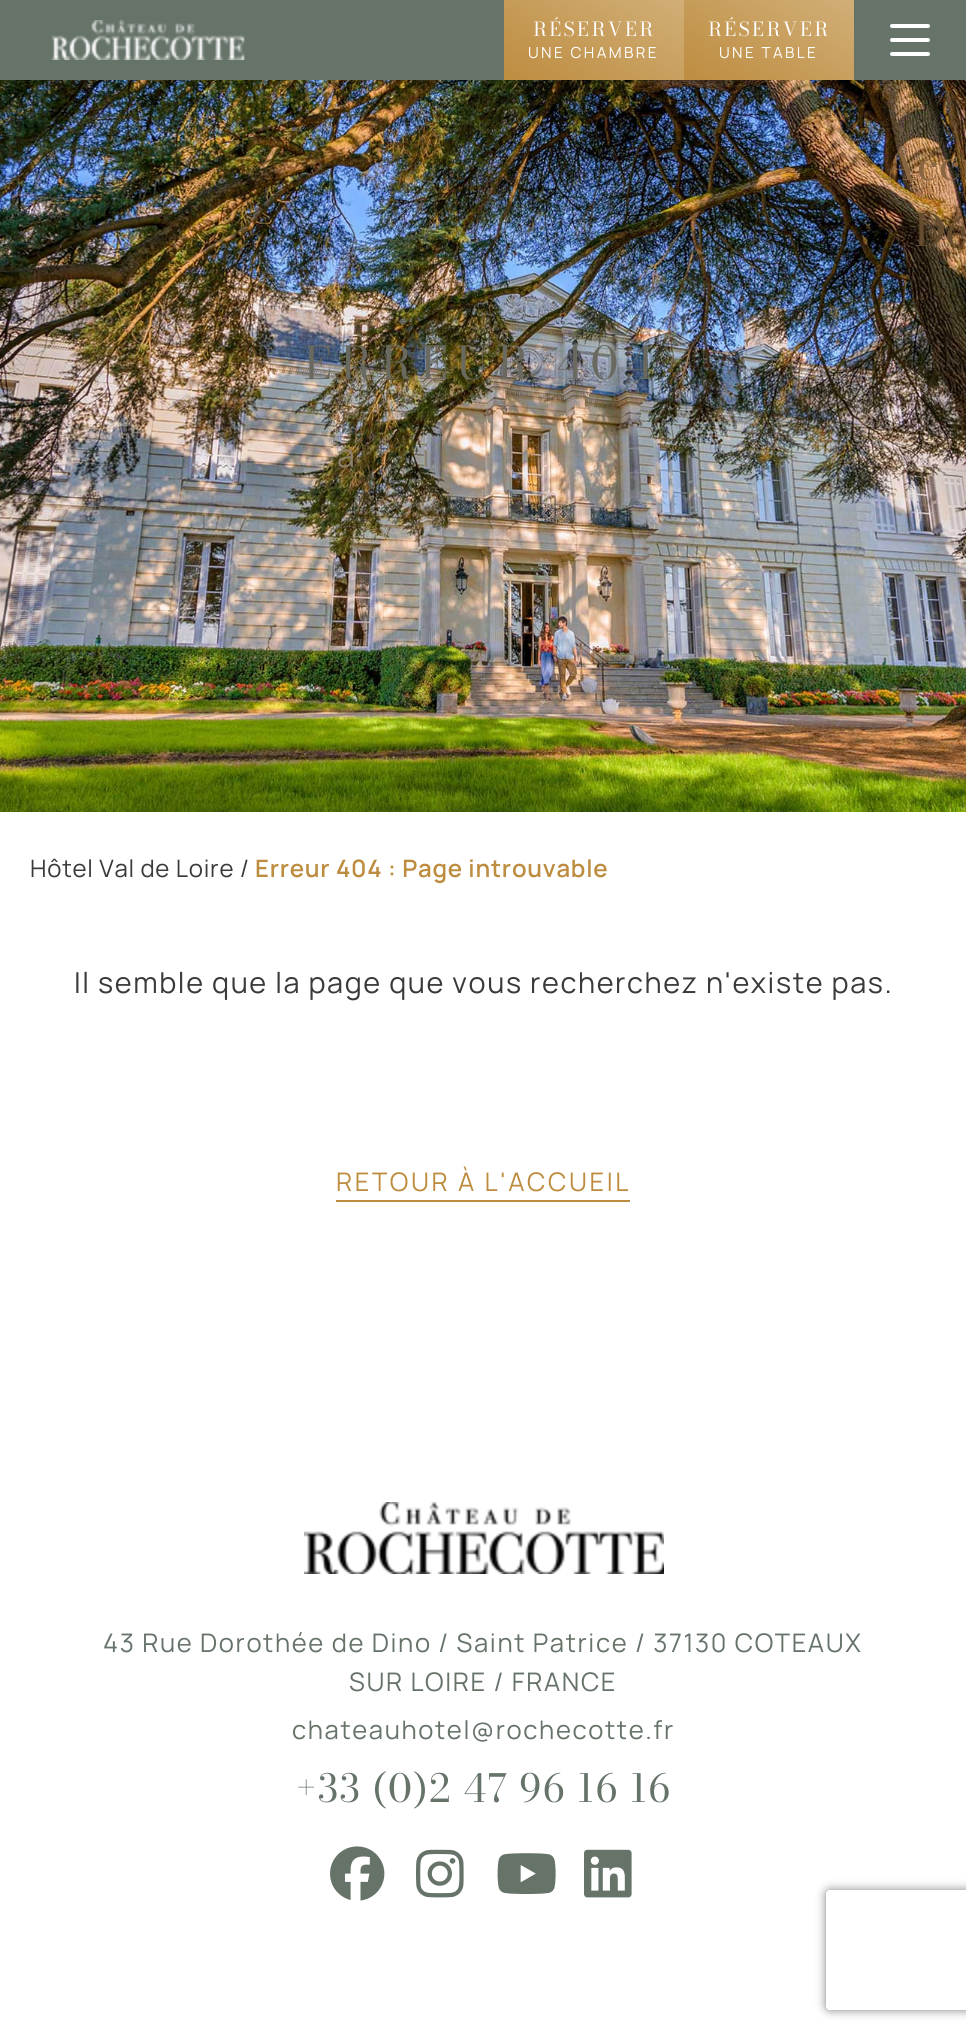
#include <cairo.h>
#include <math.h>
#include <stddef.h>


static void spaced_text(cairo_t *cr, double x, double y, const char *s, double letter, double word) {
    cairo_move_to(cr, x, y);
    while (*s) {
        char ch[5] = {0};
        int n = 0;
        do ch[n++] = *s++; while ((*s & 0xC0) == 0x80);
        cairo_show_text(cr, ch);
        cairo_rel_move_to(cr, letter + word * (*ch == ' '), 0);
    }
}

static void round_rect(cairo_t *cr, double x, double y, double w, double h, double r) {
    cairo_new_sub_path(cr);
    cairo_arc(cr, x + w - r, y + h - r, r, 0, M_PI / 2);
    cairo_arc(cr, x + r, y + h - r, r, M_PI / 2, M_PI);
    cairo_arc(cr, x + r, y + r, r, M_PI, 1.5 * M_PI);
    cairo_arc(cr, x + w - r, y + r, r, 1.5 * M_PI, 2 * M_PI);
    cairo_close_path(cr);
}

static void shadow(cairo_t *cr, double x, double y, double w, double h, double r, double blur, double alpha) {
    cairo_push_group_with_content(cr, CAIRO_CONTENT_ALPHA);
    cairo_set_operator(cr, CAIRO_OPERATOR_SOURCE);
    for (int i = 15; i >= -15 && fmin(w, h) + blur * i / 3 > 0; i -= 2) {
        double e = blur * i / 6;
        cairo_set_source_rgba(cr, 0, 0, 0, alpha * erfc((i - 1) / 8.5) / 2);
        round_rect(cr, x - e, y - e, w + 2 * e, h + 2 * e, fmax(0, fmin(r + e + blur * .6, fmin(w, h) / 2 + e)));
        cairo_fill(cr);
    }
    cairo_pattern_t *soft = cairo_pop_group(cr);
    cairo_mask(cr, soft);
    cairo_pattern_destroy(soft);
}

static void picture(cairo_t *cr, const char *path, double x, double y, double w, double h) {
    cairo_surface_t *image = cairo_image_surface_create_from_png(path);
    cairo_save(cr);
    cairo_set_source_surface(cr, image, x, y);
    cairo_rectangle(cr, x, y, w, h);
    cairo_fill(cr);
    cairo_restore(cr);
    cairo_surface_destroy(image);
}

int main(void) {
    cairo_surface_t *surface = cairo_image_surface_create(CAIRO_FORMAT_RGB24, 966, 2038);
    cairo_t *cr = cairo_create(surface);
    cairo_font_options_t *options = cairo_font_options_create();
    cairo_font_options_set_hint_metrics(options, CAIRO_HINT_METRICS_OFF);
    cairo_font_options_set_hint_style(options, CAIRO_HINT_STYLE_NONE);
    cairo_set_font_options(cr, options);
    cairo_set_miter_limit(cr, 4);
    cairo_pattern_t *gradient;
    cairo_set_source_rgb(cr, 1, 1, 1);
    cairo_paint(cr);
    cairo_set_source_rgb(cr, 0.4, 0.451, 0.412);
    cairo_rectangle(cr, 0, 0, 504, 80);
    cairo_fill(cr);
    picture(cr, "img1.png", 51, 20, 194, 40);
    gradient = cairo_pattern_create_linear(560, 115, 646, -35);
    cairo_pattern_add_color_stop_rgba(gradient, 0, 0.741, 0.549, 0.247, 1);
    cairo_pattern_add_color_stop_rgba(gradient, 1, 0.827, 0.694, 0.482, 1);
    cairo_set_source(cr, gradient);
    cairo_pattern_destroy(gradient);
    cairo_rectangle(cr, 504, 0, 180, 80);
    cairo_fill(cr);
    cairo_select_font_face(cr, "Bodoni Moda", CAIRO_FONT_SLANT_NORMAL, CAIRO_FONT_WEIGHT_NORMAL);
    cairo_set_font_size(cr, 19.25);
    cairo_set_source_rgb(cr, 1, 1, 1);
    spaced_text(cr, 533, 36, "RÉSERVER", 2.4, 0);
    cairo_select_font_face(cr, "Manrope", CAIRO_FONT_SLANT_NORMAL, CAIRO_FONT_WEIGHT_NORMAL);
    cairo_set_font_size(cr, 15.25);
    spaced_text(cr, 528, 58, "UNE CHAMBRE", 2.4, 0);
    gradient = cairo_pattern_create_linear(735, 112, 819, -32);
    cairo_pattern_add_color_stop_rgba(gradient, 0, 0.741, 0.549, 0.247, 1);
    cairo_pattern_add_color_stop_rgba(gradient, 1, 0.827, 0.694, 0.482, 1);
    cairo_set_source(cr, gradient);
    cairo_pattern_destroy(gradient);
    cairo_rectangle(cr, 684, 0, 170, 80);
    cairo_fill(cr);
    cairo_select_font_face(cr, "Bodoni Moda", CAIRO_FONT_SLANT_NORMAL, CAIRO_FONT_WEIGHT_NORMAL);
    cairo_set_font_size(cr, 19.25);
    cairo_set_source_rgb(cr, 1, 1, 1);
    spaced_text(cr, 708, 36, "RÉSERVER", 2.4, 0);
    cairo_select_font_face(cr, "Manrope", CAIRO_FONT_SLANT_NORMAL, CAIRO_FONT_WEIGHT_NORMAL);
    cairo_set_font_size(cr, 15.25);
    spaced_text(cr, 719, 58, "UNE TABLE", 2.4, 0);
    cairo_set_source_rgb(cr, 0.4, 0.451, 0.412);
    cairo_rectangle(cr, 854, 0, 112, 80);
    cairo_fill(cr);
    cairo_set_source_rgb(cr, 1, 1, 1);
    round_rect(cr, 890, 24, 40, 4, 2);
    cairo_fill(cr);
    round_rect(cr, 890, 38, 40, 4, 2);
    cairo_fill(cr);
    round_rect(cr, 890, 52, 40, 4, 2);
    cairo_fill(cr);
    picture(cr, "img2.png", 0, 80, 966, 732);
    cairo_select_font_face(cr, "Bodoni Moda", CAIRO_FONT_SLANT_NORMAL, CAIRO_FONT_WEIGHT_NORMAL);
    cairo_set_font_size(cr, 44);
    cairo_set_source_rgb(cr, 0.537, 0.396, 0.259);
    spaced_text(cr, 883, 180, "Accu", -0.5, 0);
    cairo_set_source_rgb(cr, 0.404, 0.302, 0.188);
    spaced_text(cr, 914, 246, "Dé", -1, 0);
    cairo_set_font_size(cr, 44.75);
    cairo_set_source_rgb(cr, 0.416, 0.412, 0.373);
    spaced_text(cr, 304, 379, "ERREUR 404", 8, 0);
    cairo_select_font_face(cr, "Manrope", CAIRO_FONT_SLANT_NORMAL, CAIRO_FONT_WEIGHT_NORMAL);
    cairo_set_font_size(cr, 32);
    cairo_set_source_rgb(cr, 0.545, 0.498, 0.427);
    spaced_text(cr, 337, 467, "a", 6, 0);
    spaced_text(cr, 422, 467, "i", 6, 0);
    cairo_set_font_size(cr, 24);
    cairo_set_source_rgb(cr, 0.227, 0.227, 0.227);
    spaced_text(cr, 30, 877, "Hôtel Val de Loire /", 0.75, 0);
    cairo_select_font_face(cr, "Manrope SemiBold", CAIRO_FONT_SLANT_NORMAL, CAIRO_FONT_WEIGHT_NORMAL);
    cairo_set_source_rgb(cr, 0.741, 0.549, 0.247);
    spaced_text(cr, 255, 877, "Erreur 404 : Page introuvable", 0.75, 0);
    cairo_select_font_face(cr, "Manrope", CAIRO_FONT_SLANT_NORMAL, CAIRO_FONT_WEIGHT_NORMAL);
    cairo_set_font_size(cr, 28.8);
    cairo_set_source_rgb(cr, 0.227, 0.227, 0.227);
    spaced_text(cr, 74, 993, "Il semble que la page que vous recherchez n'existe pas.", 1.6, 0);
    cairo_set_source_rgb(cr, 0.741, 0.549, 0.247);
    cairo_rectangle(cr, 336, 1200, 294, 2);
    cairo_fill(cr);
    cairo_set_font_size(cr, 25.6);
    spaced_text(cr, 336, 1191, "RETOUR À L'ACCUEIL", 2.6, 0);
    picture(cr, "img3.png", 304, 1502, 360, 72);
    cairo_set_source_rgb(cr, 0.4, 0.451, 0.412);
    spaced_text(cr, 103, 1652, "43 Rue Dorothée de Dino / Saint Patrice / 37130 COTEAUX", 1.6, 0);
    spaced_text(cr, 349, 1691, "SUR LOIRE / FRANCE", 1.6, 0);
    spaced_text(cr, 292, 1739, "chateauhotel@rochecotte.fr", 1.6, 0);
    cairo_select_font_face(cr, "Bodoni Moda", CAIRO_FONT_SLANT_NORMAL, CAIRO_FONT_WEIGHT_NORMAL);
    cairo_set_font_size(cr, 38.5);
    spaced_text(cr, 296, 1802, "+33 (0)2 47 96 16 16", 1.6, 0);
    picture(cr, "img4.png", 330, 1846, 55, 55);
    picture(cr, "img5.png", 416, 1849, 48, 49);
    picture(cr, "img6.png", 497, 1853, 59, 41);
    picture(cr, "img7.png", 584, 1849, 48, 49);
    cairo_save(cr);
    cairo_set_fill_rule(cr, CAIRO_FILL_RULE_EVEN_ODD);
    cairo_new_path(cr);
    cairo_move_to(cr, 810, 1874);
    cairo_line_to(cr, 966, 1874);
    cairo_line_to(cr, 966, 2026);
    cairo_line_to(cr, 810, 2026);
    cairo_close_path(cr);
    cairo_move_to(cr, 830, 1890);
    cairo_line_to(cr, 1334, 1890);
    cairo_curve_to(cr, 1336, 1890, 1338, 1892, 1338, 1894);
    cairo_line_to(cr, 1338, 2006);
    cairo_curve_to(cr, 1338, 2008, 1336, 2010, 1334, 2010);
    cairo_line_to(cr, 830, 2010);
    cairo_curve_to(cr, 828, 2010, 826, 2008, 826, 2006);
    cairo_line_to(cr, 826, 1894);
    cairo_curve_to(cr, 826, 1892, 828, 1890, 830, 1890);
    cairo_close_path(cr);
    cairo_clip(cr);
    cairo_set_source_rgb(cr, 0.502, 0.502, 0.502);
    shadow(cr, 826, 1890, 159, 120, 4, 5, 1);
    cairo_restore(cr);
    cairo_surface_write_to_png(surface, "page.png");
    cairo_font_options_destroy(options);
    cairo_destroy(cr);
    cairo_surface_destroy(surface);
    return 0;
}
